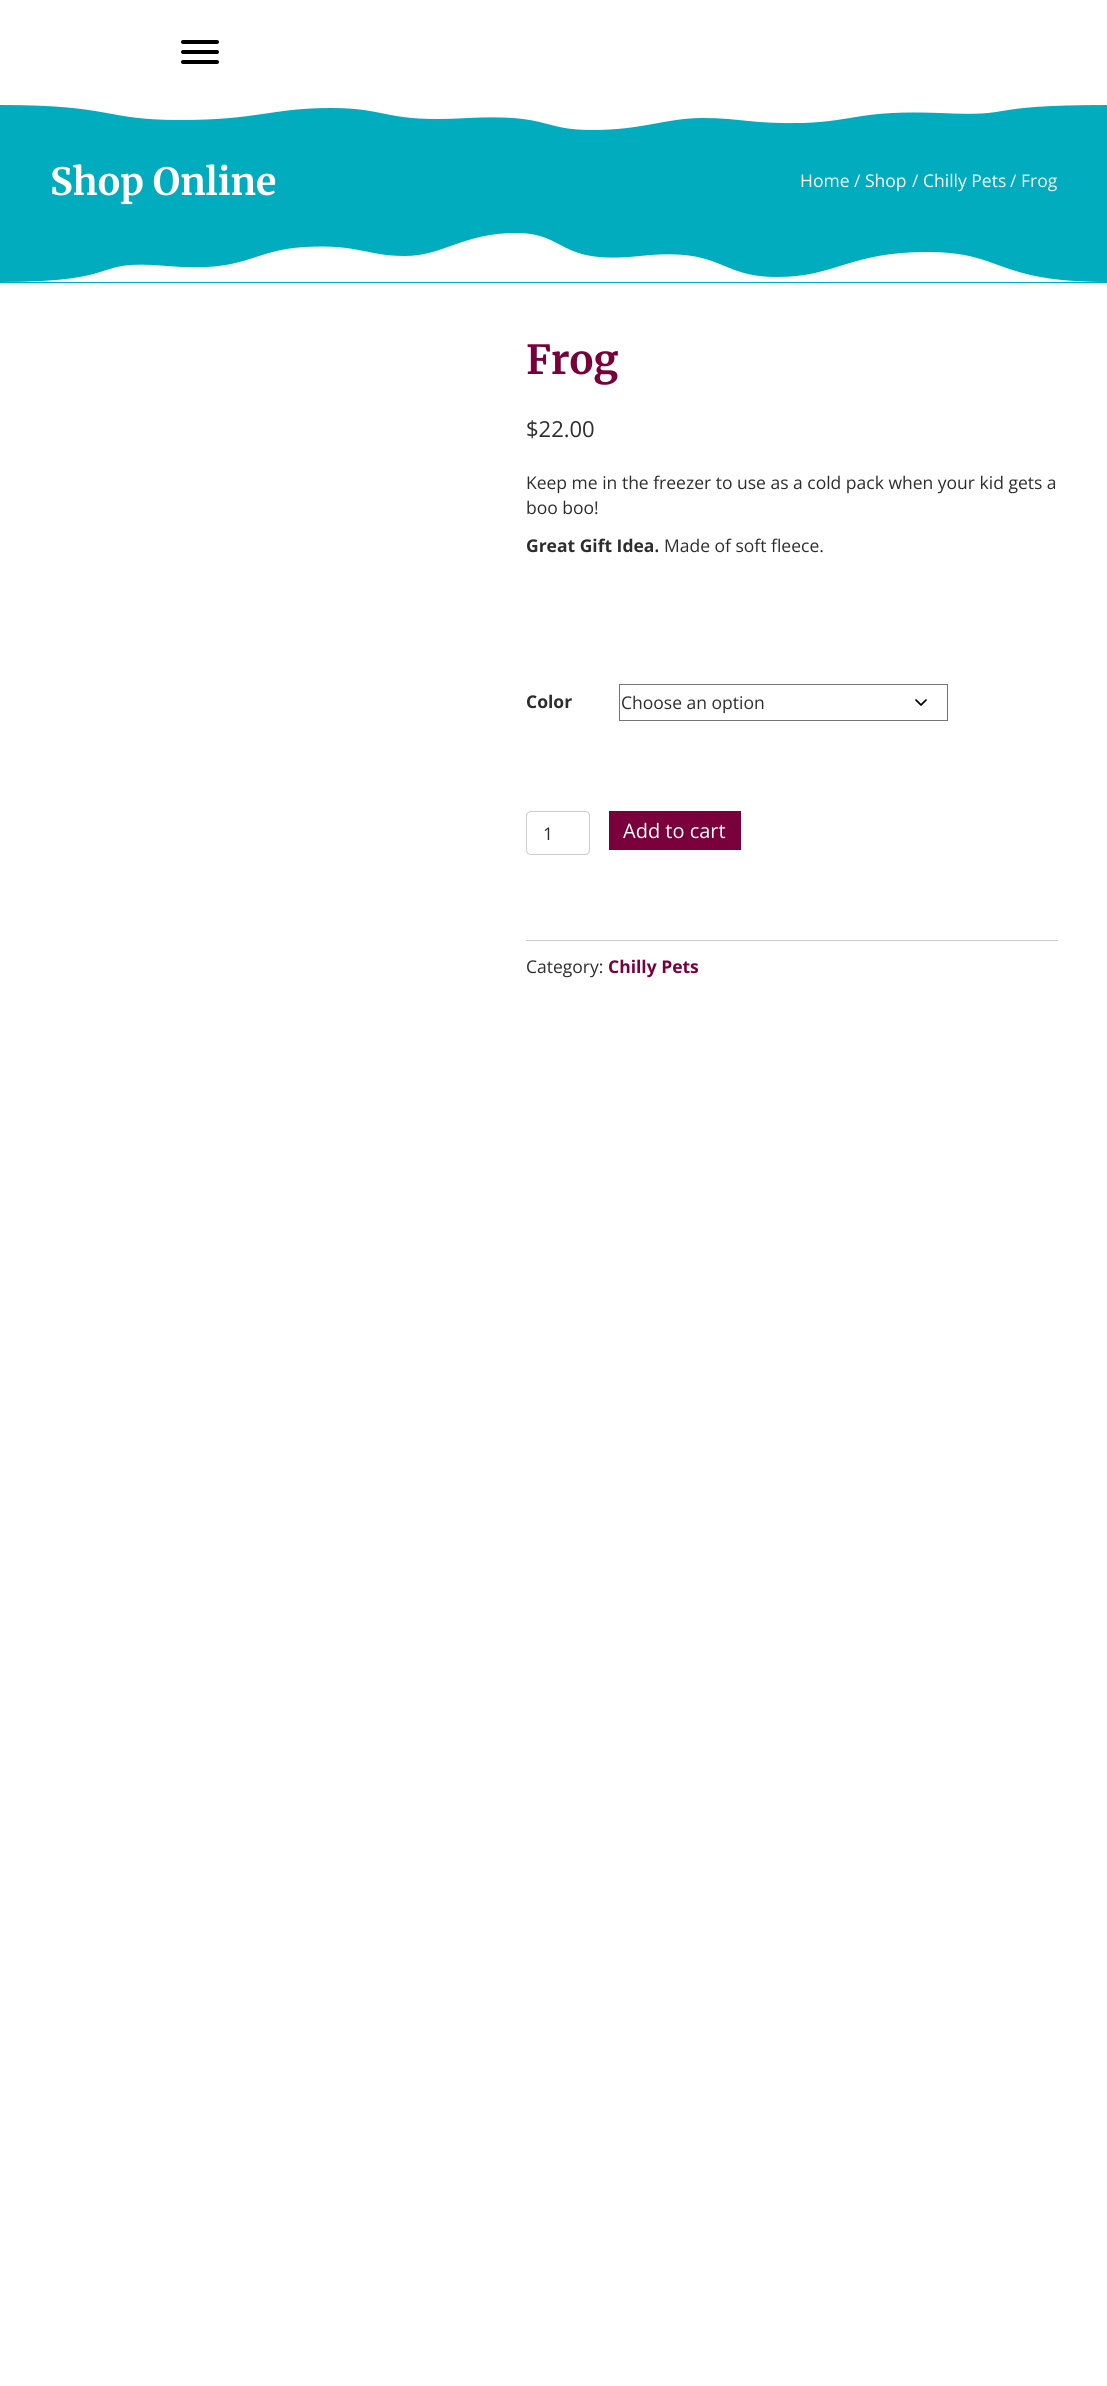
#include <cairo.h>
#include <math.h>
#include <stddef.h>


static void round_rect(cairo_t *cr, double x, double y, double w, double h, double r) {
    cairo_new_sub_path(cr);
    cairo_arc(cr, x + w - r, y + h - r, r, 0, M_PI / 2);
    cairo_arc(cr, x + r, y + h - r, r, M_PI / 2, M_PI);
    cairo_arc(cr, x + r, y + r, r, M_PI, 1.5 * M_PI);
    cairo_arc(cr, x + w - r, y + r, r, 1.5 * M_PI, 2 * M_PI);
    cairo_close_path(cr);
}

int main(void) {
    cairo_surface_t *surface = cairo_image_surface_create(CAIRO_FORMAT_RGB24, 1107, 2386);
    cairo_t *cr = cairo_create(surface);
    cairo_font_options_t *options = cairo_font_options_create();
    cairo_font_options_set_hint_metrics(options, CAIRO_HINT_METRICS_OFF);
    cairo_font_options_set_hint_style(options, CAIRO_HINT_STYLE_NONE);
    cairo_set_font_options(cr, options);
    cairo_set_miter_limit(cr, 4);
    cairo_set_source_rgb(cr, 1, 1, 1);
    cairo_paint(cr);
    cairo_set_source_rgb(cr, 0, 0, 0);
    round_rect(cr, 181, 50, 38, 4, 2);
    cairo_fill(cr);
    round_rect(cr, 181, 40, 38, 4, 2);
    cairo_fill(cr);
    round_rect(cr, 181, 60, 38, 4, 2);
    cairo_fill(cr);
    cairo_set_source_rgb(cr, 0.004, 0.675, 0.745);
    cairo_rectangle(cr, 0, 105, 1107, 178);
    cairo_fill(cr);
    cairo_set_source_rgb(cr, 1, 1, 1);
    cairo_new_path(cr);
    cairo_move_to(cr, 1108, 105);
    cairo_line_to(cr, 0, 105);
    cairo_curve_to(cr, 115, 105, 102, 120, 180, 120);
    cairo_curve_to(cr, 259, 120, 271, 108, 331, 108);
    cairo_curve_to(cr, 390, 108, 384, 123, 468, 118);
    cairo_curve_to(cr, 551, 114, 540, 130, 592, 130);
    cairo_curve_to(cr, 644, 130, 665, 118, 703, 118);
    cairo_curve_to(cr, 741, 118, 749, 124, 803, 123);
    cairo_curve_to(cr, 857, 121, 859, 110, 940, 113);
    cairo_curve_to(cr, 1022, 117, 976, 105, 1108, 105);
    cairo_close_path(cr);
    cairo_fill(cr);
    cairo_select_font_face(cr, "Merriweather Light", CAIRO_FONT_SLANT_NORMAL, CAIRO_FONT_WEIGHT_NORMAL);
    cairo_set_font_size(cr, 37.5);
    cairo_move_to(cr, 50, 195);
    cairo_show_text(cr, "Shop Online");
    cairo_select_font_face(cr, "Open Sans", CAIRO_FONT_SLANT_NORMAL, CAIRO_FONT_WEIGHT_NORMAL);
    cairo_set_font_size(cr, 17.5);
    cairo_move_to(cr, 800, 187);
    cairo_show_text(cr, "Home");
    cairo_set_source_rgb(cr, 0.949, 0.949, 0.949);
    cairo_move_to(cr, 854, 187);
    cairo_show_text(cr, "/");
    cairo_set_source_rgb(cr, 1, 1, 1);
    cairo_move_to(cr, 865, 187);
    cairo_show_text(cr, "Shop");
    cairo_set_source_rgb(cr, 0.949, 0.949, 0.949);
    cairo_move_to(cr, 912, 187);
    cairo_show_text(cr, "/");
    cairo_set_source_rgb(cr, 1, 1, 1);
    cairo_move_to(cr, 923, 187);
    cairo_show_text(cr, "Chilly Pets");
    cairo_set_source_rgb(cr, 0.949, 0.949, 0.949);
    cairo_move_to(cr, 1010, 187);
    cairo_show_text(cr, "/ Frog");
    cairo_set_source_rgb(cr, 1, 1, 1);
    cairo_new_path(cr);
    cairo_move_to(cr, 0, 282);
    cairo_line_to(cr, 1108, 282);
    cairo_curve_to(cr, 993, 282, 1005, 252, 927, 252);
    cairo_curve_to(cr, 849, 252, 836, 277, 777, 277);
    cairo_curve_to(cr, 717, 277, 724, 247, 640, 256);
    cairo_curve_to(cr, 556, 265, 568, 233, 516, 233);
    cairo_curve_to(cr, 463, 233, 443, 256, 405, 256);
    cairo_curve_to(cr, 366, 256, 359, 244, 305, 247);
    cairo_curve_to(cr, 250, 250, 248, 273, 167, 266);
    cairo_curve_to(cr, 86, 259, 131, 282, 0, 282);
    cairo_close_path(cr);
    cairo_fill(cr);
    cairo_select_font_face(cr, "Merriweather Light", CAIRO_FONT_SLANT_NORMAL, CAIRO_FONT_WEIGHT_NORMAL);
    cairo_set_font_size(cr, 40);
    cairo_set_source_rgb(cr, 0.478, 0, 0.231);
    cairo_move_to(cr, 526, 374);
    cairo_show_text(cr, "Frog");
    cairo_select_font_face(cr, "Open Sans", CAIRO_FONT_SLANT_NORMAL, CAIRO_FONT_WEIGHT_NORMAL);
    cairo_set_font_size(cr, 22);
    cairo_set_source_rgb(cr, 0.176, 0.176, 0.176);
    cairo_move_to(cr, 526, 437);
    cairo_show_text(cr, "$22.00");
    cairo_set_font_size(cr, 17.5);
    cairo_move_to(cr, 526, 489);
    cairo_show_text(cr, "Keep me in the freezer to use as a cold pack when your kid gets a");
    cairo_move_to(cr, 526, 514);
    cairo_show_text(cr, "boo boo!");
    cairo_select_font_face(cr, "Open Sans", CAIRO_FONT_SLANT_NORMAL, CAIRO_FONT_WEIGHT_BOLD);
    cairo_move_to(cr, 526, 552);
    cairo_show_text(cr, "Great Gift Idea.");
    cairo_select_font_face(cr, "Open Sans", CAIRO_FONT_SLANT_NORMAL, CAIRO_FONT_WEIGHT_NORMAL);
    cairo_move_to(cr, 664, 552);
    cairo_show_text(cr, "Made of soft fleece.");
    cairo_select_font_face(cr, "Open Sans", CAIRO_FONT_SLANT_NORMAL, CAIRO_FONT_WEIGHT_BOLD);
    cairo_move_to(cr, 526, 708);
    cairo_show_text(cr, "Color");
    cairo_new_path(cr);
    cairo_move_to(cr, 916, 700);
    cairo_line_to(cr, 921, 705);
    cairo_line_to(cr, 926, 700);
    cairo_set_source_rgb(cr, 0, 0, 0);
    cairo_set_line_width(cr, 1.7);
    cairo_set_line_cap(cr, CAIRO_LINE_CAP_ROUND);
    cairo_set_line_join(cr, CAIRO_LINE_JOIN_ROUND);
    cairo_stroke(cr);
    cairo_rectangle(cr, 619.5, 684.5, 328, 36);
    cairo_set_source_rgb(cr, 0.463, 0.463, 0.463);
    cairo_set_line_width(cr, 1);
    cairo_set_line_cap(cr, CAIRO_LINE_CAP_BUTT);
    cairo_set_line_join(cr, CAIRO_LINE_JOIN_MITER);
    cairo_stroke(cr);
    cairo_select_font_face(cr, "Open Sans", CAIRO_FONT_SLANT_NORMAL, CAIRO_FONT_WEIGHT_NORMAL);
    cairo_set_source_rgb(cr, 0.176, 0.176, 0.176);
    cairo_move_to(cr, 621, 709);
    cairo_show_text(cr, "Choose an option");
    round_rect(cr, 526.5, 811.5, 63, 43, 4.5);
    cairo_set_source_rgb(cr, 0.8, 0.8, 0.8);
    cairo_stroke(cr);
    cairo_set_source_rgb(cr, 0.176, 0.176, 0.176);
    cairo_move_to(cr, 543, 840);
    cairo_show_text(cr, "1");
    cairo_set_source_rgb(cr, 0.478, 0, 0.231);
    cairo_rectangle(cr, 609, 811, 132, 39);
    cairo_fill(cr);
    cairo_set_font_size(cr, 20);
    cairo_set_source_rgb(cr, 1, 1, 1);
    cairo_move_to(cr, 623, 838);
    cairo_show_text(cr, "Add to cart");
    cairo_set_source_rgb(cr, 0.8, 0.8, 0.8);
    cairo_rectangle(cr, 526, 940, 532, 1);
    cairo_fill(cr);
    cairo_set_font_size(cr, 17.5);
    cairo_set_source_rgb(cr, 0.176, 0.176, 0.176);
    cairo_move_to(cr, 526, 973);
    cairo_show_text(cr, "Category:");
    cairo_select_font_face(cr, "Open Sans", CAIRO_FONT_SLANT_NORMAL, CAIRO_FONT_WEIGHT_BOLD);
    cairo_set_source_rgb(cr, 0.478, 0, 0.231);
    cairo_move_to(cr, 608, 973);
    cairo_show_text(cr, "Chilly Pets");
    cairo_surface_write_to_png(surface, "page.png");
    cairo_font_options_destroy(options);
    cairo_destroy(cr);
    cairo_surface_destroy(surface);
    return 0;
}
